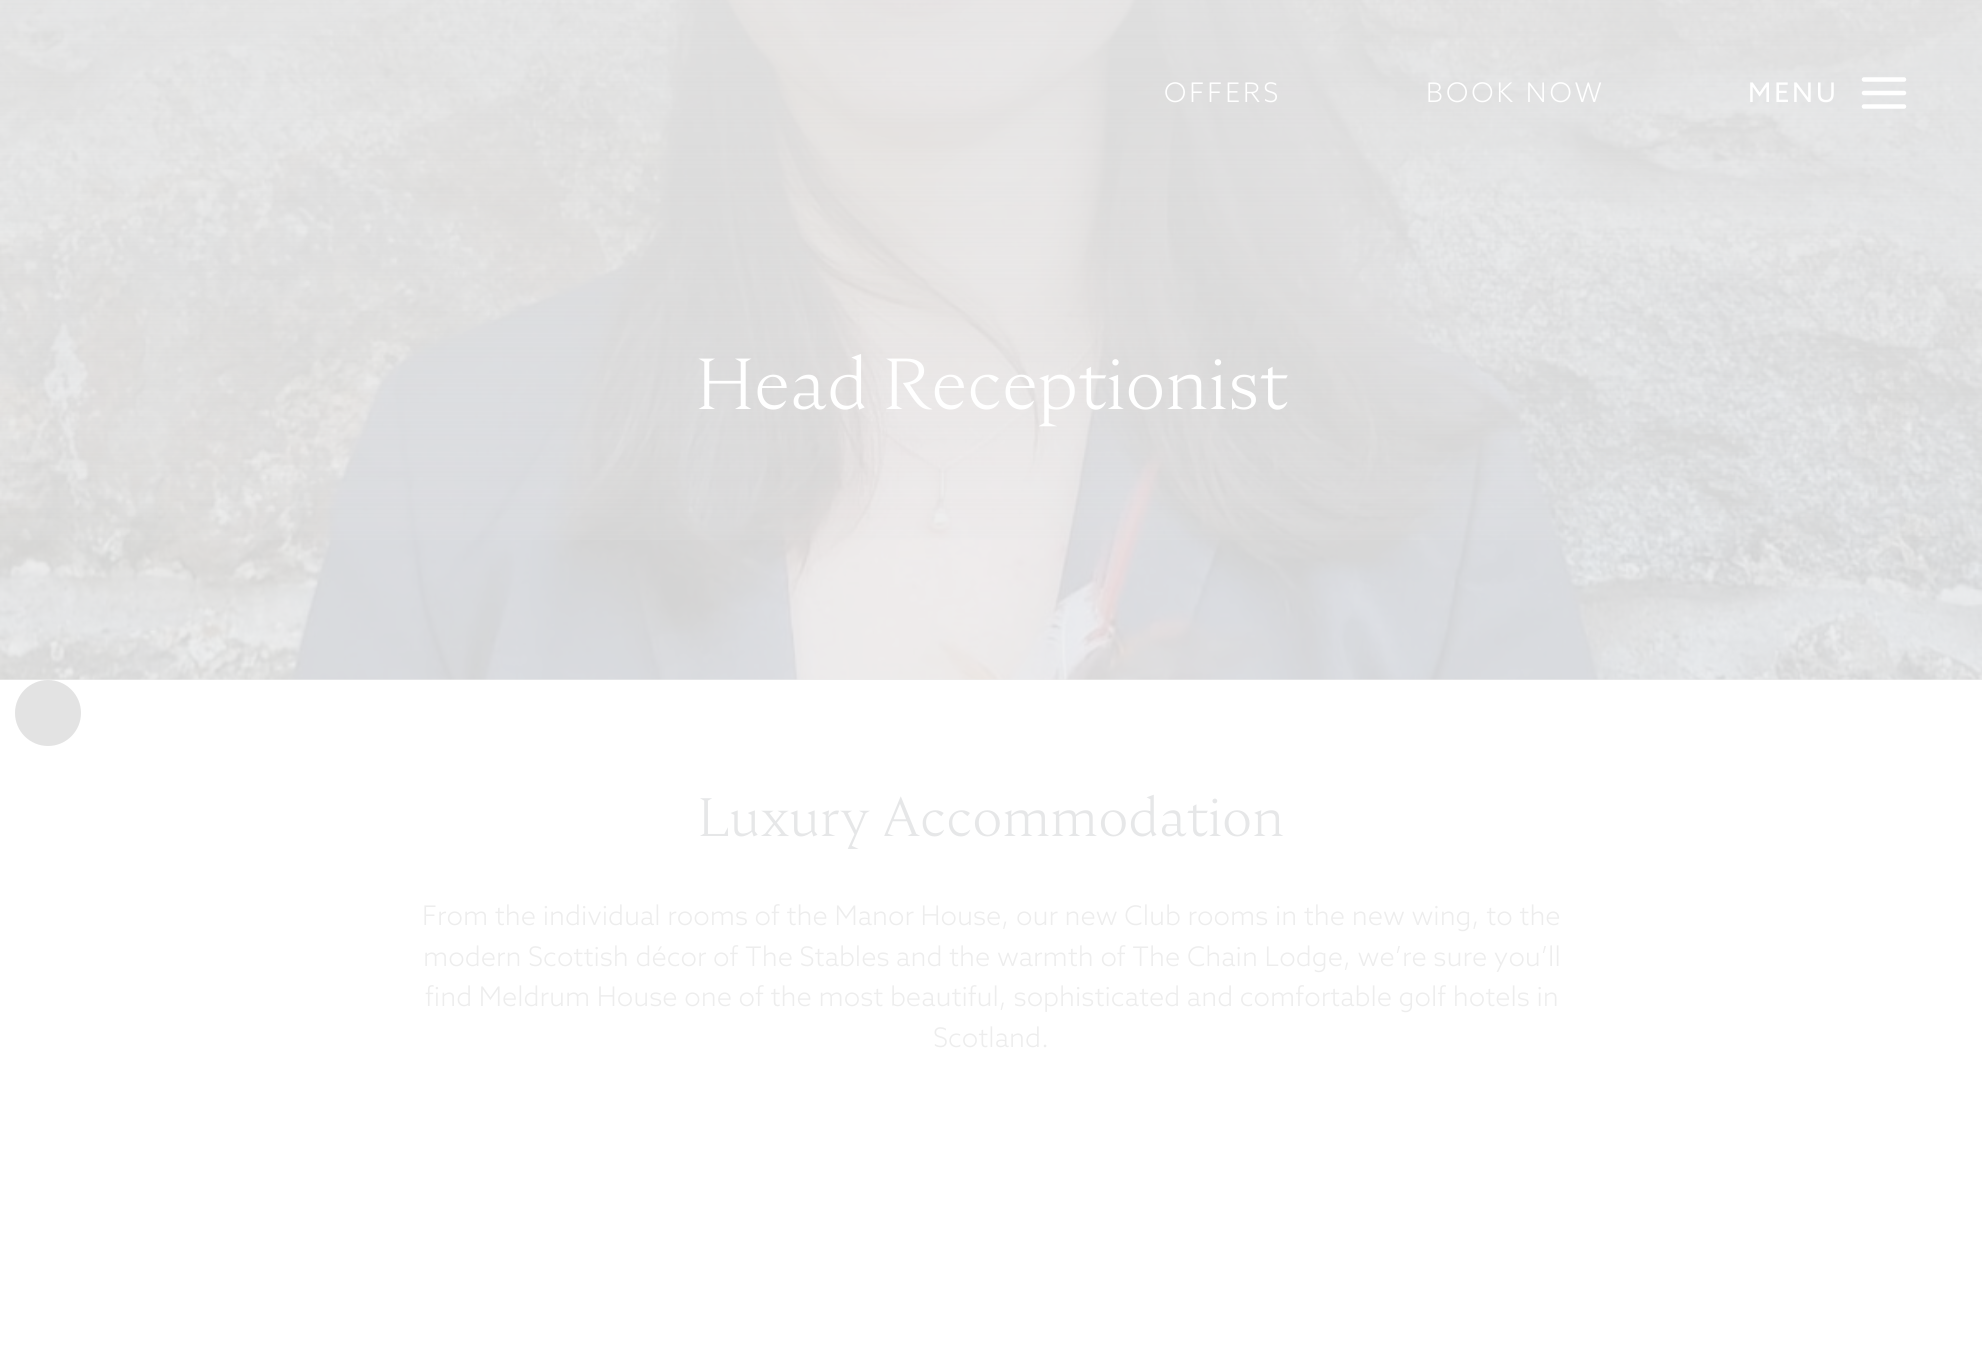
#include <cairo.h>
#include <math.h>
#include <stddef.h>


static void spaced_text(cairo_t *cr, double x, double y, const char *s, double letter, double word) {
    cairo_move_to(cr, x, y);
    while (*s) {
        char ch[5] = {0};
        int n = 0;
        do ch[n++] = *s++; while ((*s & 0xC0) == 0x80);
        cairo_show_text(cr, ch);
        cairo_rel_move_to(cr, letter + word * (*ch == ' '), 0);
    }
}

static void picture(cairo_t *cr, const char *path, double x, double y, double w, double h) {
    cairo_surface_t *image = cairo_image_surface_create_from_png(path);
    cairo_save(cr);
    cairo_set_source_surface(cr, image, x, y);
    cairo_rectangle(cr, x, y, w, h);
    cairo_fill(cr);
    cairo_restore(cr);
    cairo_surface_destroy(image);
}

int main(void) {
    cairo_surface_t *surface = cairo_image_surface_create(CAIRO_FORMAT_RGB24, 1982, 1359);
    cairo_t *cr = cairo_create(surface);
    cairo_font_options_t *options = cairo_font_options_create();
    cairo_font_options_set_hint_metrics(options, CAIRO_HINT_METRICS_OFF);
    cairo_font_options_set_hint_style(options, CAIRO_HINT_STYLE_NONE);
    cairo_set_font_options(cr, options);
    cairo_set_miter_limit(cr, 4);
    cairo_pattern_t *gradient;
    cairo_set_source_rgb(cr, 1, 1, 1);
    cairo_paint(cr);
    cairo_set_source_rgb(cr, 0.933, 0.933, 0.933);
    cairo_rectangle(cr, 0, 0, 1982, 680);
    cairo_fill(cr);
    picture(cr, "img1.png", 0, 0, 1982, 680);
    gradient = cairo_pattern_create_linear(992, 0, 992, 680);
    cairo_pattern_add_color_stop_rgba(gradient, 0, 0.894, 0.894, 0.894, 0.65);
    cairo_pattern_add_color_stop_rgba(gradient, 1, 0.894, 0.894, 0.894, 0);
    cairo_set_source(cr, gradient);
    cairo_pattern_destroy(gradient);
    cairo_rectangle(cr, 0, 0, 1982, 540);
    cairo_fill(cr);
    cairo_select_font_face(cr, "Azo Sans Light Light", CAIRO_FONT_SLANT_NORMAL, CAIRO_FONT_WEIGHT_NORMAL);
    cairo_set_font_size(cr, 27);
    cairo_set_source_rgb(cr, 1, 1, 1);
    spaced_text(cr, 1164, 102, "OFFERS", 3, 0);
    spaced_text(cr, 1426, 102, "BOOK NOW", 3, 0);
    cairo_select_font_face(cr, "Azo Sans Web", CAIRO_FONT_SLANT_NORMAL, CAIRO_FONT_WEIGHT_NORMAL);
    spaced_text(cr, 1748, 102, "MENU", 3, 0);
    cairo_new_path(cr);
    cairo_move_to(cr, 1864, 93);
    cairo_line_to(cr, 1904, 93);
    cairo_move_to(cr, 1864, 79.5);
    cairo_line_to(cr, 1904, 79.5);
    cairo_move_to(cr, 1864, 106.5);
    cairo_line_to(cr, 1904, 106.5);
    cairo_set_line_width(cr, 4.5);
    cairo_set_line_cap(cr, CAIRO_LINE_CAP_ROUND);
    cairo_set_line_join(cr, CAIRO_LINE_JOIN_ROUND);
    cairo_stroke(cr);
    cairo_set_source_rgb(cr, 0.89, 0.89, 0.89);
    cairo_arc(cr, 48, 713, 33, 0, 2 * M_PI);
    cairo_fill(cr);
    cairo_select_font_face(cr, "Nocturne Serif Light", CAIRO_FONT_SLANT_NORMAL, CAIRO_FONT_WEIGHT_NORMAL);
    cairo_set_font_size(cr, 72);
    cairo_set_source_rgb(cr, 1, 1, 1);
    cairo_move_to(cr, 696, 409);
    cairo_show_text(cr, "Head Receptionist");
    cairo_set_font_size(cr, 54);
    cairo_set_source_rgb(cr, 0.902, 0.906, 0.91);
    cairo_move_to(cr, 698, 836);
    cairo_show_text(cr, "Luxury Accommodation");
    cairo_select_font_face(cr, "Azo Sans Light Light", CAIRO_FONT_SLANT_NORMAL, CAIRO_FONT_WEIGHT_NORMAL);
    cairo_set_font_size(cr, 27);
    cairo_set_source_rgb(cr, 0.929, 0.929, 0.929);
    cairo_move_to(cr, 422, 925);
    cairo_show_text(cr, "From the individual rooms of the Manor House, our new Club rooms in the new wing, to the");
    cairo_move_to(cr, 423, 966);
    cairo_show_text(cr, "modern Scottish décor of The Stables and the warmth of The Chain Lodge, we’re sure you’ll");
    cairo_move_to(cr, 425, 1006);
    cairo_show_text(cr, "find Meldrum House one of the most beautiful, sophisticated and comfortable golf hotels in");
    cairo_move_to(cr, 933, 1047);
    cairo_show_text(cr, "Scotland.");
    cairo_surface_write_to_png(surface, "page.png");
    cairo_font_options_destroy(options);
    cairo_destroy(cr);
    cairo_surface_destroy(surface);
    return 0;
}
